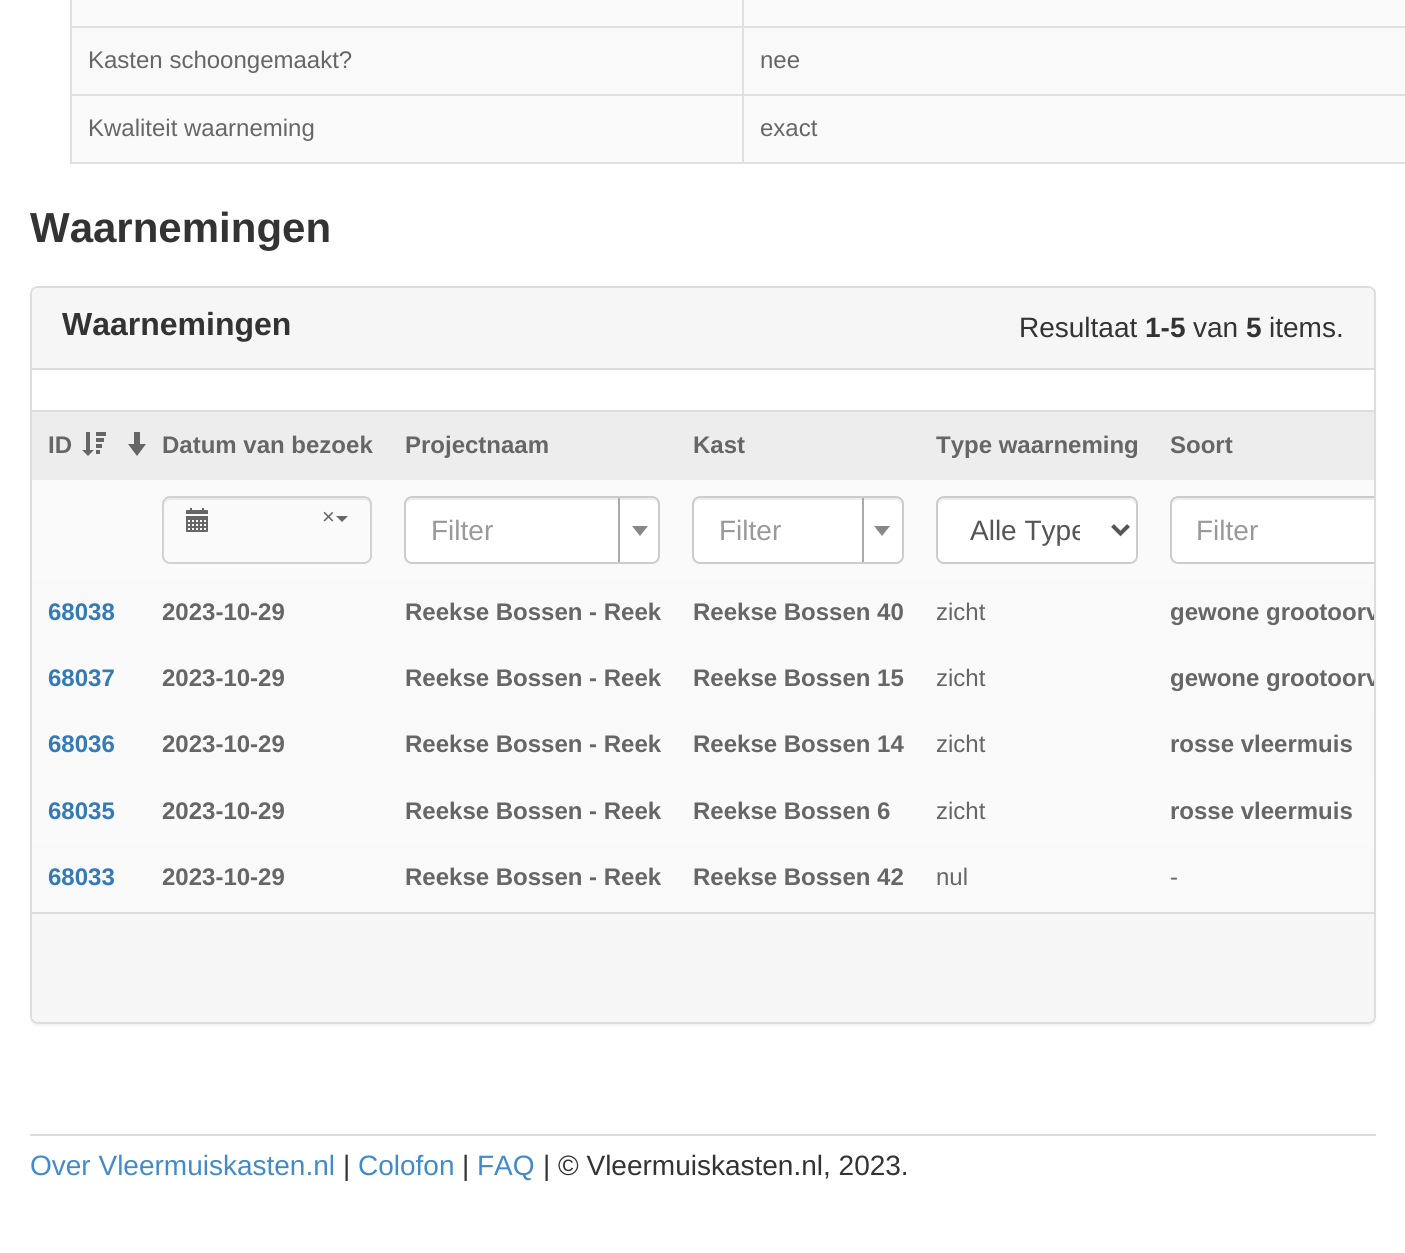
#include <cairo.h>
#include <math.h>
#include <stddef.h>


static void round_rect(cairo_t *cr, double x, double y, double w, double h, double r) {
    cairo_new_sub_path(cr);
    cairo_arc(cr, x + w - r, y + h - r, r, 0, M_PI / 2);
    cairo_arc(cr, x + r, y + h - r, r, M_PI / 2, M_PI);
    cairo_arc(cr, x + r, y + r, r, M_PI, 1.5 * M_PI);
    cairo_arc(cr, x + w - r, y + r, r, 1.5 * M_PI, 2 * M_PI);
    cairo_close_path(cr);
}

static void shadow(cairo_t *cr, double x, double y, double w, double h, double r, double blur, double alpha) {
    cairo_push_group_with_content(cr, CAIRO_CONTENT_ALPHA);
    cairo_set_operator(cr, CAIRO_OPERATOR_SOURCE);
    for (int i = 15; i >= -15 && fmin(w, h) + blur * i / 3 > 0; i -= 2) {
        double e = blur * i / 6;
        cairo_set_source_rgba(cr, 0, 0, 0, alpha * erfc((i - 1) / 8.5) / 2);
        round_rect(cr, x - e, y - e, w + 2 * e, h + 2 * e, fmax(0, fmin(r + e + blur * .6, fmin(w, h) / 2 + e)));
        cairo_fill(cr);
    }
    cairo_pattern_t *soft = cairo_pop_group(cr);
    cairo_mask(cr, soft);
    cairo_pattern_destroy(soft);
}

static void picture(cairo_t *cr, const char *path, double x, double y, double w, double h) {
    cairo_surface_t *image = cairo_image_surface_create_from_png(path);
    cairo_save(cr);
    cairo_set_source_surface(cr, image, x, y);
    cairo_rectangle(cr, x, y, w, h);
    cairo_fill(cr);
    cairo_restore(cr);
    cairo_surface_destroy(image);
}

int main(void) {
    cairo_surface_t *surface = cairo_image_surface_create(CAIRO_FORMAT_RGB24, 1405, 1253);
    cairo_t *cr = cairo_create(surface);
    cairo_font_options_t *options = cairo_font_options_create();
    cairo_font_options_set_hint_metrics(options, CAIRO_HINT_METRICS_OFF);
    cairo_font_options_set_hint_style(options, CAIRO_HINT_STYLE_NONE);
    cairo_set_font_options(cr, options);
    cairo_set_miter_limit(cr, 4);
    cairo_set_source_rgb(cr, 1, 1, 1);
    cairo_paint(cr);
    cairo_set_source_rgb(cr, 0.98, 0.98, 0.98);
    cairo_rectangle(cr, 72, 0, 670, 26);
    cairo_fill(cr);
    cairo_set_source_rgb(cr, 0.976, 0.976, 0.976);
    cairo_rectangle(cr, 72, 28, 1333, 66);
    cairo_fill(cr);
    cairo_set_source_rgb(cr, 0.878, 0.878, 0.878);
    cairo_rectangle(cr, 742, 162, 663, 2);
    cairo_fill(cr);
    cairo_rectangle(cr, 742, 94, 2, 70);
    cairo_fill(cr);
    cairo_rectangle(cr, 742, 94, 663, 2);
    cairo_fill(cr);
    cairo_rectangle(cr, 742, 26, 2, 70);
    cairo_fill(cr);
    cairo_rectangle(cr, 742, 26, 663, 2);
    cairo_fill(cr);
    cairo_rectangle(cr, 742, 0, 2, 28);
    cairo_fill(cr);
    cairo_rectangle(cr, 70, 162, 674, 2);
    cairo_fill(cr);
    cairo_rectangle(cr, 70, 94, 2, 70);
    cairo_fill(cr);
    cairo_rectangle(cr, 70, 94, 674, 2);
    cairo_fill(cr);
    cairo_rectangle(cr, 70, 26, 2, 70);
    cairo_fill(cr);
    cairo_rectangle(cr, 70, 26, 674, 2);
    cairo_fill(cr);
    cairo_rectangle(cr, 70, 0, 2, 28);
    cairo_fill(cr);
    cairo_set_source_rgb(cr, 0.98, 0.98, 0.98);
    cairo_rectangle(cr, 744, 0, 661, 26);
    cairo_fill(cr);
    cairo_select_font_face(cr, "Liberation Sans", CAIRO_FONT_SLANT_NORMAL, CAIRO_FONT_WEIGHT_NORMAL);
    cairo_set_font_size(cr, 24);
    cairo_set_source_rgb(cr, 0.4, 0.4, 0.4);
    cairo_move_to(cr, 88, 68);
    cairo_show_text(cr, "Kasten schoongemaakt?");
    cairo_move_to(cr, 760, 68);
    cairo_show_text(cr, "nee");
    cairo_set_source_rgb(cr, 0.98, 0.98, 0.98);
    cairo_rectangle(cr, 72, 96, 670, 66);
    cairo_fill(cr);
    cairo_set_source_rgb(cr, 0.4, 0.4, 0.4);
    cairo_move_to(cr, 88, 136);
    cairo_show_text(cr, "Kwaliteit waarneming");
    cairo_set_source_rgb(cr, 0.98, 0.98, 0.98);
    cairo_rectangle(cr, 744, 96, 661, 66);
    cairo_fill(cr);
    cairo_set_source_rgb(cr, 0.4, 0.4, 0.4);
    cairo_move_to(cr, 760, 136);
    cairo_show_text(cr, "exact");
    cairo_select_font_face(cr, "Liberation Sans", CAIRO_FONT_SLANT_NORMAL, CAIRO_FONT_WEIGHT_BOLD);
    cairo_set_font_size(cr, 42);
    cairo_set_source_rgb(cr, 0.2, 0.2, 0.2);
    cairo_move_to(cr, 30, 242);
    cairo_show_text(cr, "Waarnemingen");
    cairo_set_source_rgb(cr, 0, 0, 0);
    shadow(cr, 30, 288, 1346, 738, 8, 1, 0.05);
    cairo_set_source_rgb(cr, 1, 1, 1);
    round_rect(cr, 31, 287, 1344, 736, 7);
    cairo_fill_preserve(cr);
    cairo_set_source_rgb(cr, 0.867, 0.867, 0.867);
    cairo_stroke(cr);
    cairo_set_source_rgb(cr, 0.961, 0.961, 0.961);
    cairo_new_path(cr);
    cairo_move_to(cr, 38, 288);
    cairo_line_to(cr, 1368, 288);
    cairo_curve_to(cr, 1371.5, 288, 1374, 290.5, 1374, 294);
    cairo_line_to(cr, 1374, 370);
    cairo_line_to(cr, 32, 370);
    cairo_line_to(cr, 32, 294);
    cairo_curve_to(cr, 32, 290.5, 34.5, 288, 38, 288);
    cairo_close_path(cr);
    cairo_fill(cr);
    cairo_set_source_rgb(cr, 0.867, 0.867, 0.867);
    cairo_rectangle(cr, 32, 368, 1342, 2);
    cairo_fill(cr);
    cairo_set_font_size(cr, 32);
    cairo_set_source_rgb(cr, 0.2, 0.2, 0.2);
    cairo_move_to(cr, 62, 335);
    cairo_show_text(cr, "Waarnemingen");
    cairo_select_font_face(cr, "Liberation Sans", CAIRO_FONT_SLANT_NORMAL, CAIRO_FONT_WEIGHT_NORMAL);
    cairo_set_font_size(cr, 28);
    cairo_move_to(cr, 1019, 337);
    cairo_show_text(cr, "Resultaat");
    cairo_select_font_face(cr, "Liberation Sans", CAIRO_FONT_SLANT_NORMAL, CAIRO_FONT_WEIGHT_BOLD);
    cairo_move_to(cr, 1145, 337);
    cairo_show_text(cr, "1-5");
    cairo_select_font_face(cr, "Liberation Sans", CAIRO_FONT_SLANT_NORMAL, CAIRO_FONT_WEIGHT_NORMAL);
    cairo_move_to(cr, 1193, 337);
    cairo_show_text(cr, "van");
    cairo_select_font_face(cr, "Liberation Sans", CAIRO_FONT_SLANT_NORMAL, CAIRO_FONT_WEIGHT_BOLD);
    cairo_move_to(cr, 1246, 337);
    cairo_show_text(cr, "5");
    cairo_select_font_face(cr, "Liberation Sans", CAIRO_FONT_SLANT_NORMAL, CAIRO_FONT_WEIGHT_NORMAL);
    cairo_move_to(cr, 1269, 337);
    cairo_show_text(cr, "items.");
    cairo_set_source_rgb(cr, 0.867, 0.867, 0.867);
    cairo_rectangle(cr, 32, 410, 1342, 2);
    cairo_fill(cr);
    cairo_set_source_rgb(cr, 0.929, 0.929, 0.929);
    cairo_rectangle(cr, 32, 412, 1342, 68);
    cairo_fill(cr);
    cairo_select_font_face(cr, "Liberation Sans", CAIRO_FONT_SLANT_NORMAL, CAIRO_FONT_WEIGHT_BOLD);
    cairo_set_font_size(cr, 24);
    cairo_set_source_rgb(cr, 0.4, 0.4, 0.4);
    cairo_move_to(cr, 48, 453);
    cairo_show_text(cr, "ID");
    picture(cr, "img1.png", 82, 432, 24, 24);
    cairo_new_path(cr);
    cairo_move_to(cr, 146, 444);
    cairo_line_to(cr, 137, 456);
    cairo_line_to(cr, 128, 444);
    cairo_line_to(cr, 134, 444);
    cairo_line_to(cr, 134, 432);
    cairo_line_to(cr, 140, 432);
    cairo_line_to(cr, 140, 444);
    cairo_close_path(cr);
    cairo_fill(cr);
    cairo_move_to(cr, 162, 453);
    cairo_show_text(cr, "Datum van bezoek");
    cairo_move_to(cr, 405, 453);
    cairo_show_text(cr, "Projectnaam");
    cairo_move_to(cr, 693, 453);
    cairo_show_text(cr, "Kast");
    cairo_move_to(cr, 936, 453);
    cairo_show_text(cr, "Type waarneming");
    cairo_move_to(cr, 1170, 453);
    cairo_show_text(cr, "Soort");
    cairo_set_source_rgb(cr, 0.98, 0.98, 0.98);
    cairo_rectangle(cr, 32, 480, 1342, 100);
    cairo_fill(cr);
    cairo_set_source_rgb(cr, 0.914, 0.914, 0.914);
    cairo_new_path(cr);
    cairo_move_to(cr, 170, 500);
    cairo_line_to(cr, 364, 500);
    cairo_curve_to(cr, 367, 500, 370, 503, 370, 506);
    cairo_line_to(cr, 370, 504);
    cairo_curve_to(cr, 370, 501, 367, 498, 364, 498);
    cairo_line_to(cr, 170, 498);
    cairo_curve_to(cr, 167, 498, 164, 501, 164, 504);
    cairo_line_to(cr, 164, 506);
    cairo_curve_to(cr, 164, 503, 167, 500, 170, 500);
    cairo_close_path(cr);
    cairo_fill(cr);
    picture(cr, "img2.png", 186, 508, 22, 24);
    round_rect(cr, 163, 497, 208, 66, 7);
    cairo_set_source_rgb(cr, 0.82, 0.82, 0.82);
    cairo_stroke(cr);
    cairo_select_font_face(cr, "Liberation Sans", CAIRO_FONT_SLANT_NORMAL, CAIRO_FONT_WEIGHT_NORMAL);
    cairo_set_font_size(cr, 22);
    cairo_set_source_rgb(cr, 0.4, 0.4, 0.4);
    cairo_move_to(cr, 322, 524);
    cairo_show_text(cr, "×");
    cairo_new_path(cr);
    cairo_move_to(cr, 336, 516);
    cairo_line_to(cr, 348, 516);
    cairo_line_to(cr, 342, 522);
    cairo_close_path(cr);
    cairo_fill(cr);
    cairo_set_source_rgb(cr, 1, 1, 1);
    round_rect(cr, 404, 496, 256, 68, 8);
    cairo_fill(cr);
    cairo_set_source_rgb(cr, 0.925, 0.925, 0.925);
    cairo_new_path(cr);
    cairo_move_to(cr, 412, 500);
    cairo_line_to(cr, 652, 500);
    cairo_curve_to(cr, 655, 500, 658, 503, 658, 506);
    cairo_curve_to(cr, 658, 503, 657, 499, 653, 498);
    cairo_line_to(cr, 412, 498);
    cairo_curve_to(cr, 407, 498, 406, 502, 406, 506);
    cairo_curve_to(cr, 406, 503, 409, 500, 412, 500);
    cairo_close_path(cr);
    cairo_fill(cr);
    round_rect(cr, 405, 497, 254, 66, 7);
    cairo_set_source_rgb(cr, 0.8, 0.8, 0.8);
    cairo_stroke(cr);
    cairo_set_font_size(cr, 28);
    cairo_set_source_rgb(cr, 0.6, 0.6, 0.6);
    cairo_move_to(cr, 431, 540);
    cairo_show_text(cr, "Filter");
    cairo_set_source_rgb(cr, 0.667, 0.667, 0.667);
    cairo_rectangle(cr, 618, 498, 2, 64);
    cairo_fill(cr);
    cairo_set_source_rgb(cr, 0.533, 0.533, 0.533);
    cairo_new_path(cr);
    cairo_move_to(cr, 632, 526);
    cairo_line_to(cr, 648, 526);
    cairo_line_to(cr, 640, 536);
    cairo_close_path(cr);
    cairo_fill(cr);
    cairo_set_source_rgb(cr, 1, 1, 1);
    round_rect(cr, 692, 496, 212, 68, 8);
    cairo_fill(cr);
    cairo_set_source_rgb(cr, 0.925, 0.925, 0.925);
    cairo_new_path(cr);
    cairo_move_to(cr, 700, 500);
    cairo_line_to(cr, 896, 500);
    cairo_curve_to(cr, 899, 500, 902, 503, 902, 506);
    cairo_line_to(cr, 902, 504);
    cairo_curve_to(cr, 902, 501, 899, 498, 896, 498);
    cairo_line_to(cr, 700, 498);
    cairo_curve_to(cr, 697, 498, 694, 501, 694, 504);
    cairo_line_to(cr, 694, 506);
    cairo_curve_to(cr, 694, 503, 697, 500, 700, 500);
    cairo_close_path(cr);
    cairo_fill(cr);
    round_rect(cr, 693, 497, 210, 66, 7);
    cairo_set_source_rgb(cr, 0.8, 0.8, 0.8);
    cairo_stroke(cr);
    cairo_set_source_rgb(cr, 0.6, 0.6, 0.6);
    cairo_move_to(cr, 719, 540);
    cairo_show_text(cr, "Filter");
    cairo_set_source_rgb(cr, 0.667, 0.667, 0.667);
    cairo_rectangle(cr, 862, 498, 2, 64);
    cairo_fill(cr);
    cairo_set_source_rgb(cr, 0.533, 0.533, 0.533);
    cairo_new_path(cr);
    cairo_move_to(cr, 874, 526);
    cairo_line_to(cr, 890, 526);
    cairo_line_to(cr, 882, 536);
    cairo_close_path(cr);
    cairo_fill(cr);
    cairo_set_source_rgb(cr, 1, 1, 1);
    round_rect(cr, 936, 496, 202, 68, 8);
    cairo_fill(cr);
    cairo_set_source_rgb(cr, 0.925, 0.925, 0.925);
    cairo_new_path(cr);
    cairo_move_to(cr, 944, 500);
    cairo_line_to(cr, 1130, 500);
    cairo_curve_to(cr, 1133, 500, 1136, 503, 1136, 506);
    cairo_line_to(cr, 1136, 504);
    cairo_curve_to(cr, 1136, 501, 1133, 498, 1130, 498);
    cairo_line_to(cr, 944, 498);
    cairo_curve_to(cr, 941, 498, 938, 501, 938, 504);
    cairo_line_to(cr, 938, 506);
    cairo_curve_to(cr, 938, 503, 941, 500, 944, 500);
    cairo_close_path(cr);
    cairo_fill(cr);
    round_rect(cr, 937, 497, 200, 66, 7);
    cairo_set_source_rgb(cr, 0.8, 0.8, 0.8);
    cairo_stroke(cr);
    cairo_new_path(cr);
    cairo_move_to(cr, 1112.5, 525.5);
    cairo_line_to(cr, 1120.5, 533.5);
    cairo_line_to(cr, 1128.5, 525.5);
    cairo_set_source_rgb(cr, 0.333, 0.333, 0.333);
    cairo_set_line_width(cr, 4);
    cairo_stroke(cr);
    cairo_save(cr);
    cairo_rectangle(cr, 970, 512, 110, 36);
    cairo_clip(cr);
    cairo_move_to(cr, 970, 540);
    cairo_show_text(cr, "Alle Type");
    cairo_restore(cr);
    cairo_set_source_rgb(cr, 1, 1, 1);
    cairo_new_path(cr);
    cairo_move_to(cr, 1178, 496);
    cairo_line_to(cr, 1374, 496);
    cairo_line_to(cr, 1374, 564);
    cairo_line_to(cr, 1178, 564);
    cairo_curve_to(cr, 1173.5, 564, 1170, 560.5, 1170, 556);
    cairo_line_to(cr, 1170, 504);
    cairo_curve_to(cr, 1170, 499.5, 1173.5, 496, 1178, 496);
    cairo_close_path(cr);
    cairo_fill(cr);
    cairo_save(cr);
    cairo_rectangle(cr, 32, 412, 1342, 500);
    cairo_clip(cr);
    cairo_set_source_rgb(cr, 0.925, 0.925, 0.925);
    cairo_new_path(cr);
    cairo_move_to(cr, 1178, 500);
    cairo_line_to(cr, 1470, 500);
    cairo_curve_to(cr, 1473, 500, 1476, 503, 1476, 506);
    cairo_line_to(cr, 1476, 504);
    cairo_curve_to(cr, 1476, 501, 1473, 498, 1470, 498);
    cairo_line_to(cr, 1178, 498);
    cairo_curve_to(cr, 1175, 498, 1172, 501, 1172, 504);
    cairo_line_to(cr, 1172, 506);
    cairo_curve_to(cr, 1172, 503, 1175, 500, 1178, 500);
    cairo_close_path(cr);
    cairo_fill(cr);
    round_rect(cr, 1171, 497, 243, 66, 7);
    cairo_set_source_rgb(cr, 0.8, 0.8, 0.8);
    cairo_set_line_width(cr, 2);
    cairo_stroke(cr);
    cairo_restore(cr);
    cairo_set_source_rgb(cr, 0.6, 0.6, 0.6);
    cairo_move_to(cr, 1196, 540);
    cairo_show_text(cr, "Filter");
    cairo_set_source_rgb(cr, 0.976, 0.976, 0.976);
    cairo_rectangle(cr, 32, 580, 1342, 66);
    cairo_fill(cr);
    cairo_select_font_face(cr, "Liberation Sans", CAIRO_FONT_SLANT_NORMAL, CAIRO_FONT_WEIGHT_BOLD);
    cairo_set_font_size(cr, 24);
    cairo_set_source_rgb(cr, 0.2, 0.478, 0.718);
    cairo_move_to(cr, 48, 620);
    cairo_show_text(cr, "68038");
    cairo_set_source_rgb(cr, 0.4, 0.4, 0.4);
    cairo_move_to(cr, 162, 620);
    cairo_show_text(cr, "2023-10-29");
    cairo_move_to(cr, 405, 620);
    cairo_show_text(cr, "Reekse Bossen - Reek");
    cairo_move_to(cr, 693, 620);
    cairo_show_text(cr, "Reekse Bossen 40");
    cairo_select_font_face(cr, "Liberation Sans", CAIRO_FONT_SLANT_NORMAL, CAIRO_FONT_WEIGHT_NORMAL);
    cairo_move_to(cr, 936, 620);
    cairo_show_text(cr, "zicht");
    cairo_save(cr);
    cairo_rectangle(cr, 32, 412, 1342, 500);
    cairo_clip(cr);
    cairo_select_font_face(cr, "Liberation Sans", CAIRO_FONT_SLANT_NORMAL, CAIRO_FONT_WEIGHT_BOLD);
    cairo_move_to(cr, 1170, 620);
    cairo_show_text(cr, "gewone grootoorv");
    cairo_restore(cr);
    cairo_set_source_rgb(cr, 0.98, 0.98, 0.98);
    cairo_rectangle(cr, 32, 646, 1342, 66);
    cairo_fill(cr);
    cairo_select_font_face(cr, "Liberation Sans", CAIRO_FONT_SLANT_NORMAL, CAIRO_FONT_WEIGHT_BOLD);
    cairo_set_source_rgb(cr, 0.2, 0.478, 0.718);
    cairo_move_to(cr, 48, 686);
    cairo_show_text(cr, "68037");
    cairo_set_source_rgb(cr, 0.4, 0.4, 0.4);
    cairo_move_to(cr, 162, 686);
    cairo_show_text(cr, "2023-10-29");
    cairo_move_to(cr, 405, 686);
    cairo_show_text(cr, "Reekse Bossen - Reek");
    cairo_move_to(cr, 693, 686);
    cairo_show_text(cr, "Reekse Bossen 15");
    cairo_select_font_face(cr, "Liberation Sans", CAIRO_FONT_SLANT_NORMAL, CAIRO_FONT_WEIGHT_NORMAL);
    cairo_move_to(cr, 936, 686);
    cairo_show_text(cr, "zicht");
    cairo_save(cr);
    cairo_rectangle(cr, 32, 412, 1342, 500);
    cairo_clip(cr);
    cairo_select_font_face(cr, "Liberation Sans", CAIRO_FONT_SLANT_NORMAL, CAIRO_FONT_WEIGHT_BOLD);
    cairo_move_to(cr, 1170, 686);
    cairo_show_text(cr, "gewone grootoorv");
    cairo_restore(cr);
    cairo_set_source_rgb(cr, 0.976, 0.976, 0.976);
    cairo_rectangle(cr, 32, 712, 1342, 66);
    cairo_fill(cr);
    cairo_select_font_face(cr, "Liberation Sans", CAIRO_FONT_SLANT_NORMAL, CAIRO_FONT_WEIGHT_BOLD);
    cairo_set_source_rgb(cr, 0.2, 0.478, 0.718);
    cairo_move_to(cr, 48, 752);
    cairo_show_text(cr, "68036");
    cairo_set_source_rgb(cr, 0.4, 0.4, 0.4);
    cairo_move_to(cr, 162, 752);
    cairo_show_text(cr, "2023-10-29");
    cairo_move_to(cr, 405, 752);
    cairo_show_text(cr, "Reekse Bossen - Reek");
    cairo_move_to(cr, 693, 752);
    cairo_show_text(cr, "Reekse Bossen 14");
    cairo_select_font_face(cr, "Liberation Sans", CAIRO_FONT_SLANT_NORMAL, CAIRO_FONT_WEIGHT_NORMAL);
    cairo_move_to(cr, 936, 752);
    cairo_show_text(cr, "zicht");
    cairo_select_font_face(cr, "Liberation Sans", CAIRO_FONT_SLANT_NORMAL, CAIRO_FONT_WEIGHT_BOLD);
    cairo_move_to(cr, 1170, 752);
    cairo_show_text(cr, "rosse vleermuis");
    cairo_set_source_rgb(cr, 0.98, 0.98, 0.98);
    cairo_rectangle(cr, 32, 778, 1342, 66);
    cairo_fill(cr);
    cairo_set_source_rgb(cr, 0.2, 0.478, 0.718);
    cairo_move_to(cr, 48, 819);
    cairo_show_text(cr, "68035");
    cairo_set_source_rgb(cr, 0.4, 0.4, 0.4);
    cairo_move_to(cr, 162, 819);
    cairo_show_text(cr, "2023-10-29");
    cairo_move_to(cr, 405, 819);
    cairo_show_text(cr, "Reekse Bossen - Reek");
    cairo_move_to(cr, 693, 819);
    cairo_show_text(cr, "Reekse Bossen 6");
    cairo_select_font_face(cr, "Liberation Sans", CAIRO_FONT_SLANT_NORMAL, CAIRO_FONT_WEIGHT_NORMAL);
    cairo_move_to(cr, 936, 819);
    cairo_show_text(cr, "zicht");
    cairo_select_font_face(cr, "Liberation Sans", CAIRO_FONT_SLANT_NORMAL, CAIRO_FONT_WEIGHT_BOLD);
    cairo_move_to(cr, 1170, 819);
    cairo_show_text(cr, "rosse vleermuis");
    cairo_set_source_rgb(cr, 0.976, 0.976, 0.976);
    cairo_rectangle(cr, 32, 844, 1342, 68);
    cairo_fill(cr);
    cairo_set_source_rgb(cr, 0.2, 0.478, 0.718);
    cairo_move_to(cr, 48, 885);
    cairo_show_text(cr, "68033");
    cairo_set_source_rgb(cr, 0.4, 0.4, 0.4);
    cairo_move_to(cr, 162, 885);
    cairo_show_text(cr, "2023-10-29");
    cairo_move_to(cr, 405, 885);
    cairo_show_text(cr, "Reekse Bossen - Reek");
    cairo_move_to(cr, 693, 885);
    cairo_show_text(cr, "Reekse Bossen 42");
    cairo_select_font_face(cr, "Liberation Sans", CAIRO_FONT_SLANT_NORMAL, CAIRO_FONT_WEIGHT_NORMAL);
    cairo_move_to(cr, 936, 885);
    cairo_show_text(cr, "nul");
    cairo_move_to(cr, 1170, 885);
    cairo_show_text(cr, "-");
    cairo_set_source_rgb(cr, 0.961, 0.961, 0.961);
    cairo_new_path(cr);
    cairo_move_to(cr, 32, 912);
    cairo_line_to(cr, 1374, 912);
    cairo_line_to(cr, 1374, 1016);
    cairo_curve_to(cr, 1374, 1019.5, 1371.5, 1022, 1368, 1022);
    cairo_line_to(cr, 38, 1022);
    cairo_curve_to(cr, 34.5, 1022, 32, 1019.5, 32, 1016);
    cairo_close_path(cr);
    cairo_fill(cr);
    cairo_set_source_rgb(cr, 0.867, 0.867, 0.867);
    cairo_rectangle(cr, 32, 912, 1342, 2);
    cairo_fill(cr);
    cairo_rectangle(cr, 30, 1134, 1346, 2);
    cairo_fill(cr);
    cairo_set_font_size(cr, 28);
    cairo_set_source_rgb(cr, 0.259, 0.545, 0.792);
    cairo_move_to(cr, 30, 1175);
    cairo_show_text(cr, "Over Vleermuiskasten.nl");
    cairo_set_source_rgb(cr, 0.2, 0.2, 0.2);
    cairo_move_to(cr, 343, 1175);
    cairo_show_text(cr, "|");
    cairo_set_source_rgb(cr, 0.259, 0.545, 0.792);
    cairo_move_to(cr, 358, 1175);
    cairo_show_text(cr, "Colofon");
    cairo_set_source_rgb(cr, 0.2, 0.2, 0.2);
    cairo_move_to(cr, 462, 1175);
    cairo_show_text(cr, "|");
    cairo_set_source_rgb(cr, 0.259, 0.545, 0.792);
    cairo_move_to(cr, 477, 1175);
    cairo_show_text(cr, "FAQ");
    cairo_set_source_rgb(cr, 0.2, 0.2, 0.2);
    cairo_move_to(cr, 543, 1175);
    cairo_show_text(cr, "| © Vleermuiskasten.nl, 2023.");
    cairo_surface_write_to_png(surface, "page.png");
    cairo_font_options_destroy(options);
    cairo_destroy(cr);
    cairo_surface_destroy(surface);
    return 0;
}
